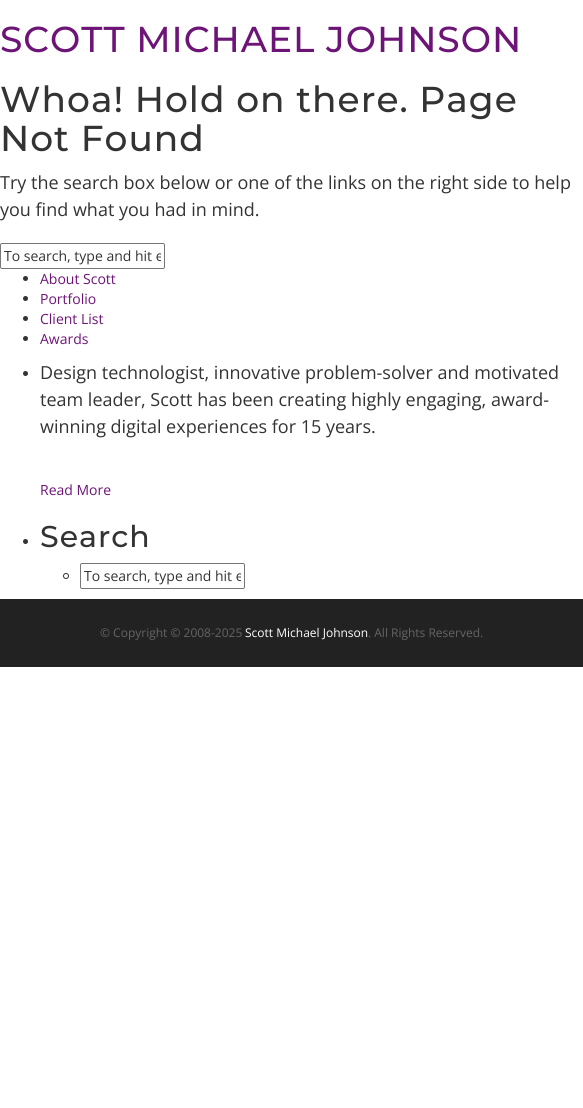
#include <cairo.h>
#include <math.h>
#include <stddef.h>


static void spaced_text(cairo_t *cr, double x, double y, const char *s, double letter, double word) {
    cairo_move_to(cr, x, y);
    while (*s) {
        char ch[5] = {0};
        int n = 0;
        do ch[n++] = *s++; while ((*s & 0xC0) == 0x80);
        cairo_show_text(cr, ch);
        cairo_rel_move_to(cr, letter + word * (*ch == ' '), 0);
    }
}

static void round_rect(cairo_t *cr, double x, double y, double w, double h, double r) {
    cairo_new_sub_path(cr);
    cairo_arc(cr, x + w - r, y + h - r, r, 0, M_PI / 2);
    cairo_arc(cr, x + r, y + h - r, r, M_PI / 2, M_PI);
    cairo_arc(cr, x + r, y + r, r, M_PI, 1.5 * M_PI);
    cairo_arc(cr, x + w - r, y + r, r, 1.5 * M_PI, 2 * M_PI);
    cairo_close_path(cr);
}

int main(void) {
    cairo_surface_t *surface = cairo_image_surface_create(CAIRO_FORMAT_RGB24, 583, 1108);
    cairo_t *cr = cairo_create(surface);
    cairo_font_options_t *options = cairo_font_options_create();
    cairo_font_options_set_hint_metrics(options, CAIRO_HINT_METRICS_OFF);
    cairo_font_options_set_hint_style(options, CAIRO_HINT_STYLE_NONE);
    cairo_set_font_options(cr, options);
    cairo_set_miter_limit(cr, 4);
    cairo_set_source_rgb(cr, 1, 1, 1);
    cairo_paint(cr);
    cairo_select_font_face(cr, "Montserrat Medium", CAIRO_FONT_SLANT_NORMAL, CAIRO_FONT_WEIGHT_NORMAL);
    cairo_set_font_size(cr, 36);
    cairo_set_source_rgb(cr, 0.427, 0.082, 0.467);
    spaced_text(cr, 0, 52, "SCOTT MICHAEL JOHNSON", 1, 0);
    cairo_set_source_rgb(cr, 0.2, 0.2, 0.2);
    spaced_text(cr, 0, 112, "Whoa! Hold on there. Page", 1, 0);
    spaced_text(cr, 0, 151, "Not Found", 1, 0);
    cairo_select_font_face(cr, "Open Sans", CAIRO_FONT_SLANT_NORMAL, CAIRO_FONT_WEIGHT_NORMAL);
    cairo_set_font_size(cr, 18);
    cairo_move_to(cr, 0, 189);
    cairo_show_text(cr, "Try the search box below or one of the links on the right side to help");
    cairo_move_to(cr, 0, 216);
    cairo_show_text(cr, "you find what you had in mind.");
    round_rect(cr, 0.5, 243.5, 164, 25, 1.5);
    cairo_set_source_rgb(cr, 0.463, 0.463, 0.463);
    cairo_set_line_width(cr, 1);
    cairo_stroke(cr);
    cairo_save(cr);
    cairo_rectangle(cr, 4, 246, 157, 20);
    cairo_clip(cr);
    cairo_set_font_size(cr, 14);
    cairo_set_source_rgb(cr, 0.2, 0.2, 0.2);
    cairo_move_to(cr, 4, 261);
    cairo_show_text(cr, "To search, type and hit e");
    cairo_restore(cr);
    cairo_set_source_rgb(cr, 0.2, 0.2, 0.2);
    cairo_new_path(cr);
    cairo_arc(cr, 25.5, 278.5, 2.5, 0, 2 * M_PI);
    cairo_fill(cr);
    cairo_set_font_size(cr, 14);
    cairo_set_source_rgb(cr, 0.427, 0.082, 0.467);
    cairo_move_to(cr, 40, 284);
    cairo_show_text(cr, "About Scott");
    cairo_set_source_rgb(cr, 0.2, 0.2, 0.2);
    cairo_new_path(cr);
    cairo_arc(cr, 25.5, 298.5, 2.5, 0, 2 * M_PI);
    cairo_fill(cr);
    cairo_set_source_rgb(cr, 0.427, 0.082, 0.467);
    cairo_move_to(cr, 40, 304);
    cairo_show_text(cr, "Portfolio");
    cairo_set_source_rgb(cr, 0.2, 0.2, 0.2);
    cairo_new_path(cr);
    cairo_arc(cr, 25.5, 318.5, 2.5, 0, 2 * M_PI);
    cairo_fill(cr);
    cairo_set_source_rgb(cr, 0.427, 0.082, 0.467);
    cairo_move_to(cr, 40, 324);
    cairo_show_text(cr, "Client List");
    cairo_set_source_rgb(cr, 0.2, 0.2, 0.2);
    cairo_new_path(cr);
    cairo_arc(cr, 25.5, 338.5, 2.5, 0, 2 * M_PI);
    cairo_fill(cr);
    cairo_set_source_rgb(cr, 0.427, 0.082, 0.467);
    cairo_move_to(cr, 40, 344);
    cairo_show_text(cr, "Awards");
    cairo_set_source_rgb(cr, 0.2, 0.2, 0.2);
    cairo_new_path(cr);
    cairo_arc(cr, 25.5, 373.5, 2.5, 0, 2 * M_PI);
    cairo_fill(cr);
    cairo_set_font_size(cr, 18);
    cairo_move_to(cr, 40, 379);
    cairo_show_text(cr, "Design technologist, innovative problem-solver and motivated");
    cairo_move_to(cr, 40, 406);
    cairo_show_text(cr, "team leader, Scott has been creating highly engaging, award-");
    cairo_move_to(cr, 40, 433);
    cairo_show_text(cr, "winning digital experiences for 15 years.");
    cairo_set_font_size(cr, 14);
    cairo_set_source_rgb(cr, 0.427, 0.082, 0.467);
    cairo_move_to(cr, 40, 495);
    cairo_show_text(cr, "Read More");
    cairo_set_source_rgb(cr, 0.2, 0.2, 0.2);
    cairo_new_path(cr);
    cairo_arc(cr, 25.5, 541.5, 2.5, 0, 2 * M_PI);
    cairo_fill(cr);
    cairo_select_font_face(cr, "Montserrat Medium", CAIRO_FONT_SLANT_NORMAL, CAIRO_FONT_WEIGHT_NORMAL);
    cairo_set_font_size(cr, 30);
    spaced_text(cr, 40, 547, "Search", 1, 0);
    cairo_new_path(cr);
    cairo_arc(cr, 66, 576, 2.5, 0, 2 * M_PI);
    cairo_stroke(cr);
    round_rect(cr, 80.5, 563.5, 164, 25, 1.5);
    cairo_set_source_rgb(cr, 0.463, 0.463, 0.463);
    cairo_stroke(cr);
    cairo_save(cr);
    cairo_rectangle(cr, 84, 566, 157, 20);
    cairo_clip(cr);
    cairo_select_font_face(cr, "Open Sans", CAIRO_FONT_SLANT_NORMAL, CAIRO_FONT_WEIGHT_NORMAL);
    cairo_set_font_size(cr, 14);
    cairo_set_source_rgb(cr, 0.2, 0.2, 0.2);
    cairo_move_to(cr, 84, 581);
    cairo_show_text(cr, "To search, type and hit e");
    cairo_restore(cr);
    cairo_set_source_rgb(cr, 0.133, 0.133, 0.133);
    cairo_rectangle(cr, 0, 599, 583, 68);
    cairo_fill(cr);
    cairo_select_font_face(cr, "Open Sans", CAIRO_FONT_SLANT_NORMAL, CAIRO_FONT_WEIGHT_NORMAL);
    cairo_set_font_size(cr, 12);
    cairo_set_source_rgb(cr, 0.392, 0.392, 0.392);
    cairo_move_to(cr, 100, 637);
    cairo_show_text(cr, "© Copyright © 2008-2025");
    cairo_set_source_rgb(cr, 1, 1, 1);
    cairo_move_to(cr, 245, 637);
    cairo_show_text(cr, "Scott Michael Johnson");
    cairo_set_source_rgb(cr, 0.392, 0.392, 0.392);
    cairo_move_to(cr, 368, 637);
    cairo_show_text(cr, ". All Rights Reserved.");
    cairo_surface_write_to_png(surface, "page.png");
    cairo_font_options_destroy(options);
    cairo_destroy(cr);
    cairo_surface_destroy(surface);
    return 0;
}
